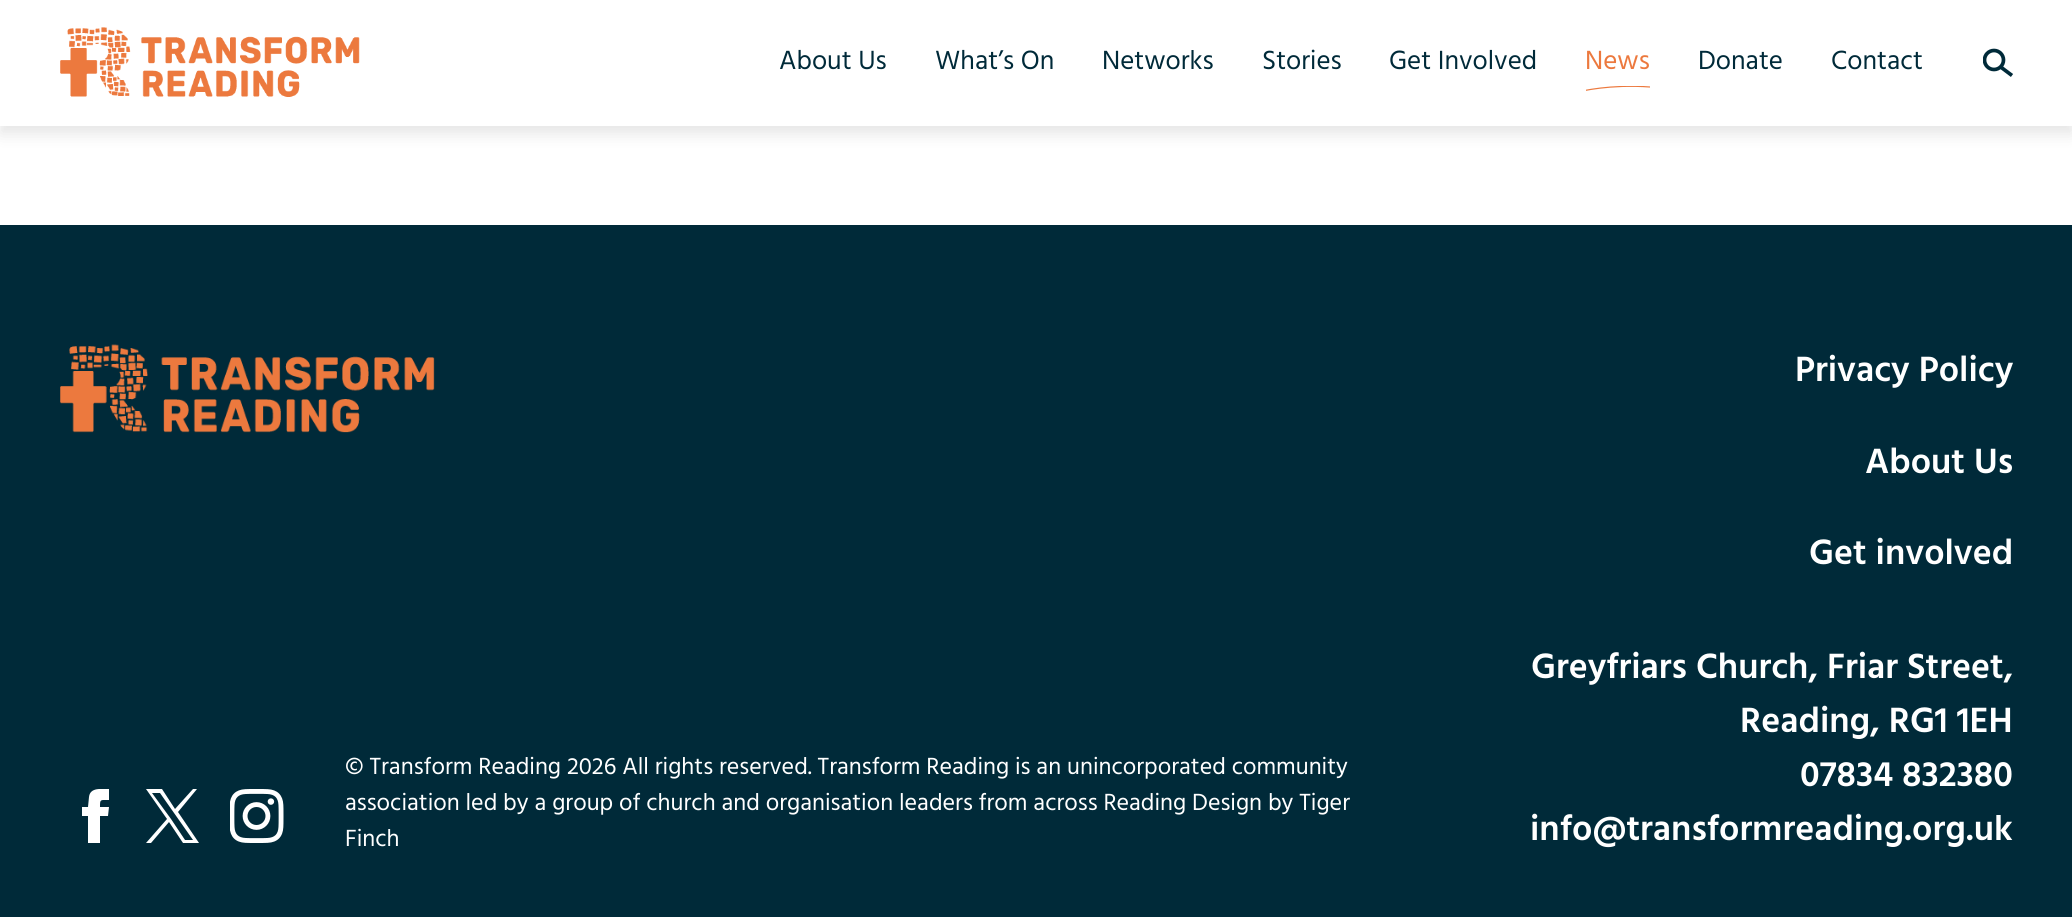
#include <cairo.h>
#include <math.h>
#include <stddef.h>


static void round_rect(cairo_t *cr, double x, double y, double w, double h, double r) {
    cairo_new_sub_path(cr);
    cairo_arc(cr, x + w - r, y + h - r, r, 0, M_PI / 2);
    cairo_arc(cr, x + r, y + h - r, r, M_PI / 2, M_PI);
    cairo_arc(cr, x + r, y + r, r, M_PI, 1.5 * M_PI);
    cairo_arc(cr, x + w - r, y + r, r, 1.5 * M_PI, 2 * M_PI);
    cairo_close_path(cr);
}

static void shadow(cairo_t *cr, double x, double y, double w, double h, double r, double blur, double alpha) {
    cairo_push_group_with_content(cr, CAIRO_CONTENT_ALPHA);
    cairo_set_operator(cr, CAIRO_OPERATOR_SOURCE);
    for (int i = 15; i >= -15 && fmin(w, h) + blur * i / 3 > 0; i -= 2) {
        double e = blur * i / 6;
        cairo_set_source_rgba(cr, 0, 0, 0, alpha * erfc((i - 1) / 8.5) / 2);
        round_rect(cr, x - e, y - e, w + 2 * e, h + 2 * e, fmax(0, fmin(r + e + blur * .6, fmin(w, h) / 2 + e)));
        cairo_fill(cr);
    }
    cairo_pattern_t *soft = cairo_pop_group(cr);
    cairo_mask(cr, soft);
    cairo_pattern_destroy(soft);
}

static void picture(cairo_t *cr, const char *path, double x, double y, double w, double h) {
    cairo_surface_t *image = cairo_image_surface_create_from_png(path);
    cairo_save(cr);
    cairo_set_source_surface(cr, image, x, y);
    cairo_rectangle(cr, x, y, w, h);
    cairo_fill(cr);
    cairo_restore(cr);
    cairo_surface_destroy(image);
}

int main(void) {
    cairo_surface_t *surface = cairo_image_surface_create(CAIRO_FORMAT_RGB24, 2072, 917);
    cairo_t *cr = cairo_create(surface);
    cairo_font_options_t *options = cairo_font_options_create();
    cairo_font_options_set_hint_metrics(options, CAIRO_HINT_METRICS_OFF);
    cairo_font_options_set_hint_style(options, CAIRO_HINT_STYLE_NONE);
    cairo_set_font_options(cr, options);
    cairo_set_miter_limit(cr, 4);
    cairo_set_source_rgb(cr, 1, 1, 1);
    cairo_paint(cr);
    cairo_set_source_rgb(cr, 0, 0, 0);
    shadow(cr, 0, 8, 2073, 126, 0, 7.5, 0.1);
    cairo_set_source_rgb(cr, 1, 1, 1);
    cairo_rectangle(cr, 0, 0, 2072, 126);
    cairo_fill(cr);
    picture(cr, "img1.png", 60, 27, 300, 70);
    cairo_select_font_face(cr, "Hind", CAIRO_FONT_SLANT_NORMAL, CAIRO_FONT_WEIGHT_NORMAL);
    cairo_set_font_size(cr, 27);
    cairo_set_source_rgb(cr, 0, 0.165, 0.224);
    cairo_move_to(cr, 779, 69);
    cairo_show_text(cr, "About Us");
    cairo_move_to(cr, 935, 69);
    cairo_show_text(cr, "What’s On");
    cairo_move_to(cr, 1102, 69);
    cairo_show_text(cr, "Networks");
    cairo_move_to(cr, 1262, 69);
    cairo_show_text(cr, "Stories");
    cairo_move_to(cr, 1389, 69);
    cairo_show_text(cr, "Get Involved");
    cairo_set_source_rgb(cr, 0.925, 0.475, 0.243);
    cairo_move_to(cr, 1585, 69);
    cairo_show_text(cr, "News");
    cairo_save(cr);
    cairo_rectangle(cr, 1586, 86, 64, 9);
    cairo_clip(cr);
    cairo_new_path(cr);
    cairo_move_to(cr, 1580, 91.5);
    cairo_curve_to(cr, 1580, 91.5, 1610, 84, 1650, 87);
    cairo_set_line_width(cr, 1.2);
    cairo_stroke(cr);
    cairo_restore(cr);
    cairo_set_source_rgb(cr, 0, 0.165, 0.224);
    cairo_move_to(cr, 1698, 69);
    cairo_show_text(cr, "Donate");
    cairo_move_to(cr, 1831, 69);
    cairo_show_text(cr, "Contact");
    cairo_save(cr);
    cairo_rectangle(cr, 1983, 48, 30, 30);
    cairo_clip(cr);
    cairo_arc(cr, 1994, 60, 9.5, 0, 2 * M_PI);
    cairo_set_line_width(cr, 3.7);
    cairo_stroke(cr);
    cairo_restore(cr);
    cairo_new_path(cr);
    cairo_move_to(cr, 2000, 66.5);
    cairo_line_to(cr, 2012, 75.5);
    cairo_set_line_width(cr, 3.7);
    cairo_stroke(cr);
    cairo_rectangle(cr, 0, 225, 2072, 692);
    cairo_fill(cr);
    picture(cr, "img2.png", 60, 344, 375, 89);
    cairo_select_font_face(cr, "Hind SemiBold", CAIRO_FONT_SLANT_NORMAL, CAIRO_FONT_WEIGHT_NORMAL);
    cairo_set_font_size(cr, 36);
    cairo_set_source_rgb(cr, 1, 1, 1);
    cairo_move_to(cr, 1795, 381);
    cairo_show_text(cr, "Privacy Policy");
    cairo_move_to(cr, 1865, 473);
    cairo_show_text(cr, "About Us");
    cairo_move_to(cr, 1809, 564);
    cairo_show_text(cr, "Get involved");
    cairo_save(cr);
    cairo_rectangle(cr, 75, 789, 41, 54);
    cairo_clip(cr);
    cairo_new_path(cr);
    cairo_move_to(cr, 88, 807);
    cairo_line_to(cr, 82, 807);
    cairo_line_to(cr, 82, 816);
    cairo_line_to(cr, 88, 816);
    cairo_line_to(cr, 88, 843);
    cairo_line_to(cr, 100, 843);
    cairo_line_to(cr, 100, 816);
    cairo_line_to(cr, 108, 816);
    cairo_line_to(cr, 109, 807);
    cairo_line_to(cr, 100, 807);
    cairo_curve_to(cr, 100, 799, 100, 800, 109, 800);
    cairo_line_to(cr, 109, 789);
    cairo_curve_to(cr, 102, 789, 90, 787, 89, 797);
    cairo_close_path(cr);
    cairo_fill(cr);
    cairo_restore(cr);
    cairo_new_path(cr);
    cairo_move_to(cr, 178, 812);
    cairo_line_to(cr, 197, 789);
    cairo_line_to(cr, 193, 789);
    cairo_line_to(cr, 175, 809);
    cairo_line_to(cr, 162, 789);
    cairo_line_to(cr, 146, 789);
    cairo_line_to(cr, 167, 819);
    cairo_line_to(cr, 146, 843);
    cairo_line_to(cr, 151, 843);
    cairo_line_to(cr, 169, 822);
    cairo_line_to(cr, 183, 843);
    cairo_line_to(cr, 199, 843);
    cairo_close_path(cr);
    cairo_move_to(cr, 171, 819);
    cairo_line_to(cr, 152, 793);
    cairo_line_to(cr, 160, 793);
    cairo_line_to(cr, 193, 840);
    cairo_line_to(cr, 185, 840);
    cairo_close_path(cr);
    cairo_fill(cr);
    picture(cr, "img3.png", 230, 789, 54, 54);
    cairo_select_font_face(cr, "Hind", CAIRO_FONT_SLANT_NORMAL, CAIRO_FONT_WEIGHT_NORMAL);
    cairo_set_font_size(cr, 24);
    cairo_move_to(cr, 345, 774);
    cairo_show_text(cr, "© Transform Reading 2026 All rights reserved. Transform Reading is an unincorporated community");
    cairo_move_to(cr, 345, 810);
    cairo_show_text(cr, "association led by a group of church and organisation leaders from across Reading Design by Tiger");
    cairo_move_to(cr, 345, 846);
    cairo_show_text(cr, "Finch");
    cairo_select_font_face(cr, "Hind SemiBold", CAIRO_FONT_SLANT_NORMAL, CAIRO_FONT_WEIGHT_NORMAL);
    cairo_set_font_size(cr, 36);
    cairo_move_to(cr, 1531, 678);
    cairo_show_text(cr, "Greyfriars Church, Friar Street,");
    cairo_move_to(cr, 1740, 732);
    cairo_show_text(cr, "Reading, RG1 1EH");
    cairo_move_to(cr, 1800, 786);
    cairo_show_text(cr, "07834 832380");
    cairo_move_to(cr, 1530, 840);
    cairo_show_text(cr, "info@transformreading.org.uk");
    cairo_surface_write_to_png(surface, "page.png");
    cairo_font_options_destroy(options);
    cairo_destroy(cr);
    cairo_surface_destroy(surface);
    return 0;
}
